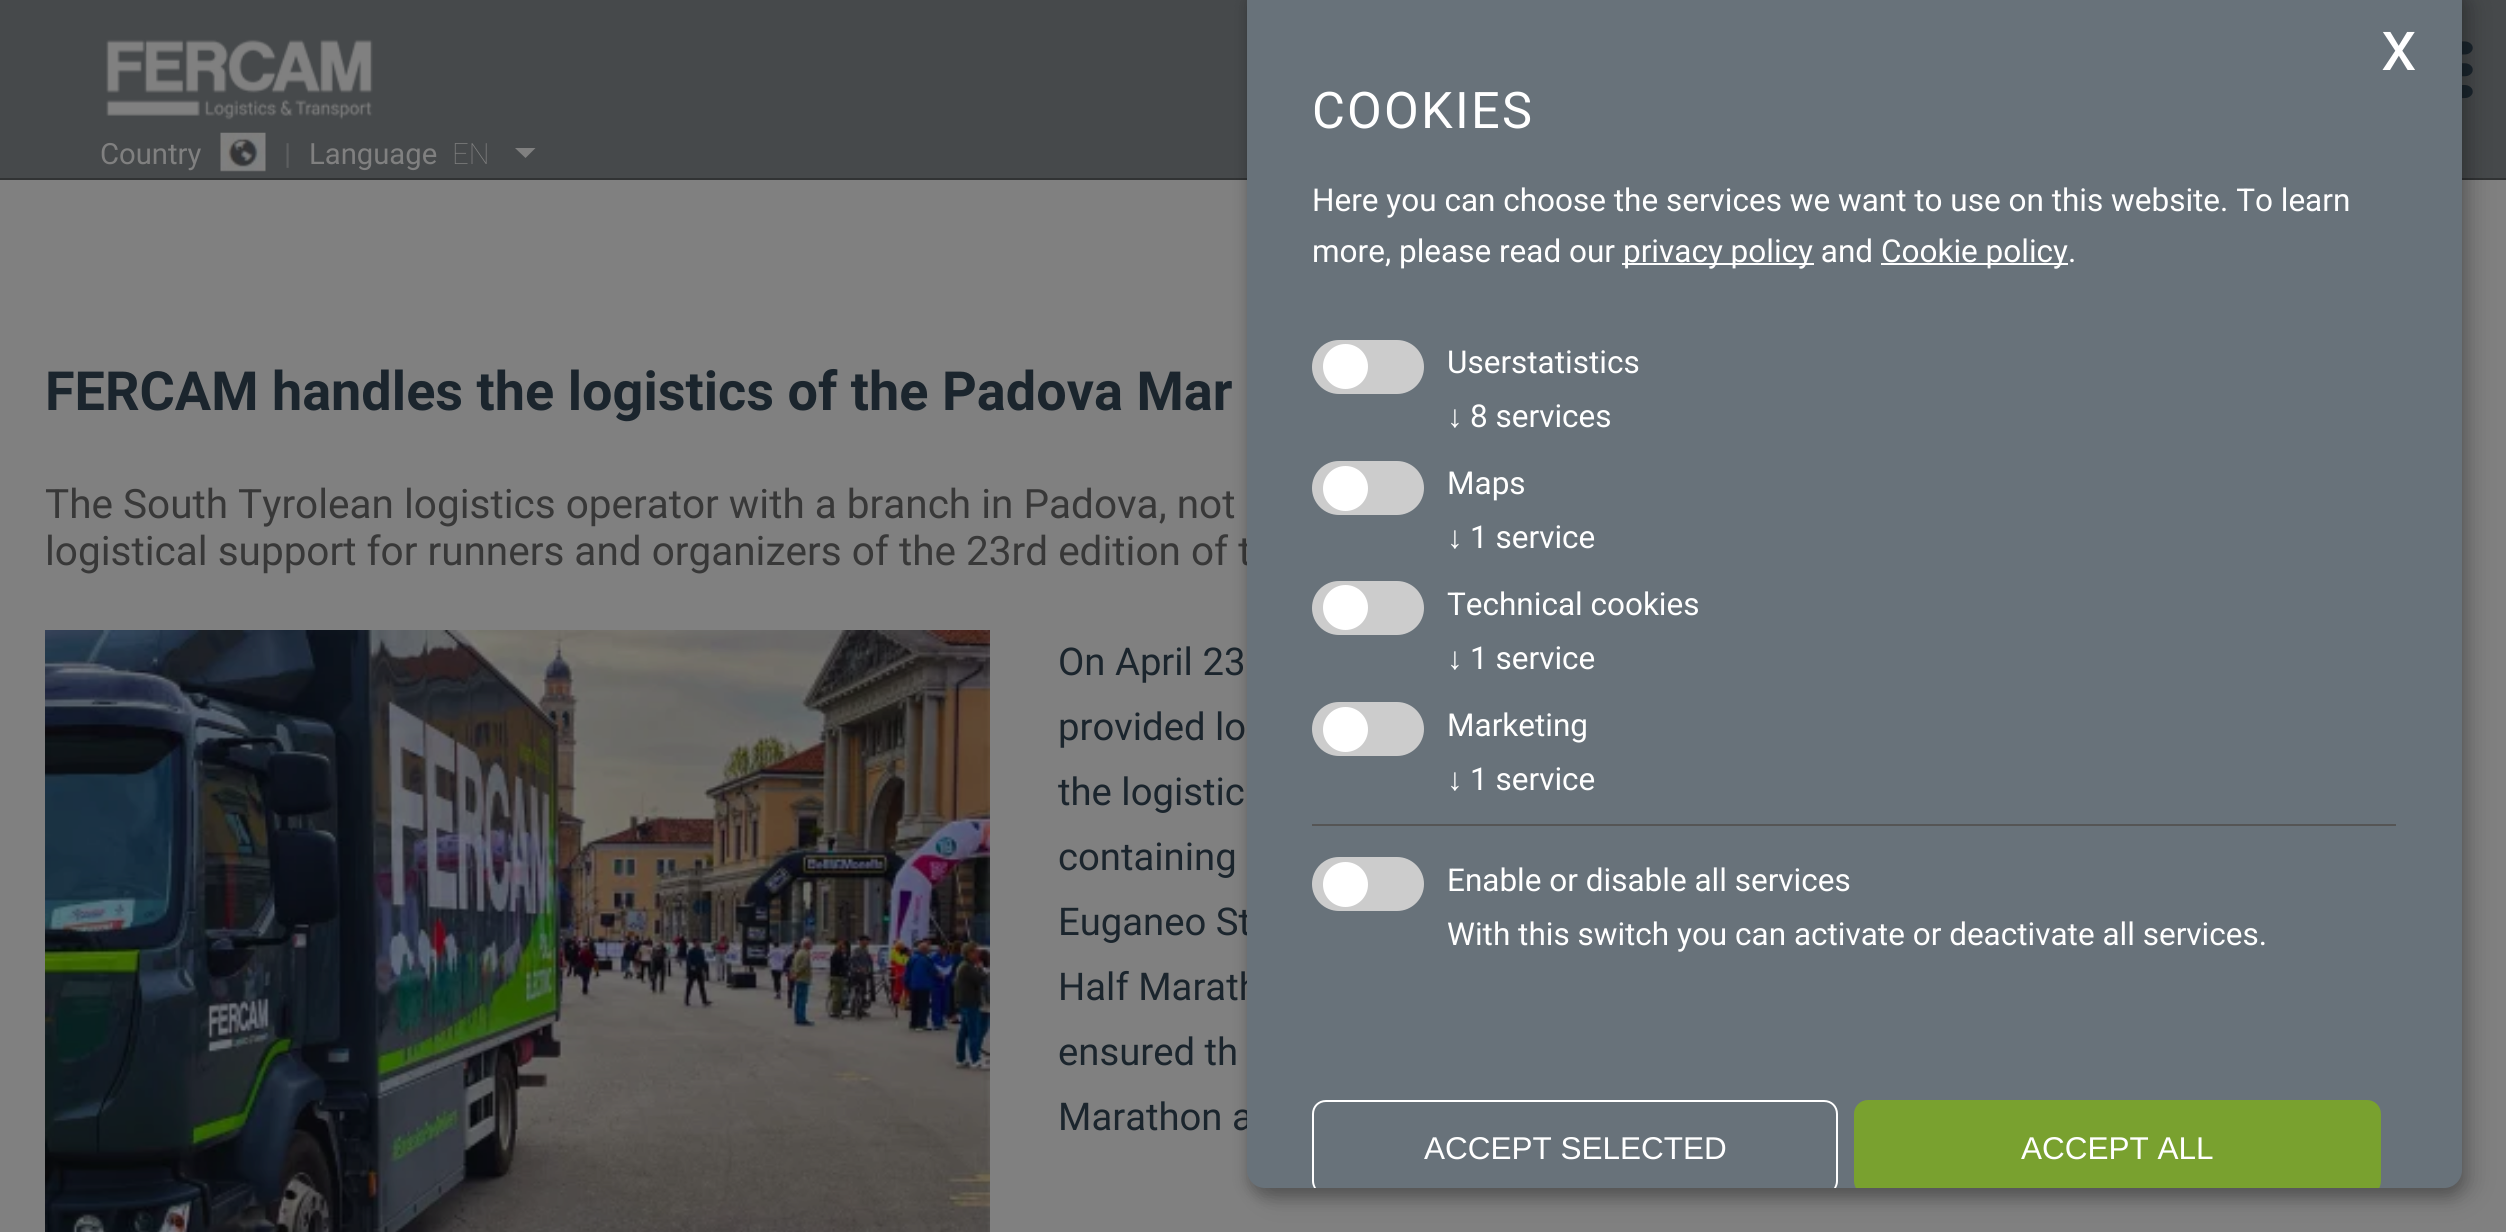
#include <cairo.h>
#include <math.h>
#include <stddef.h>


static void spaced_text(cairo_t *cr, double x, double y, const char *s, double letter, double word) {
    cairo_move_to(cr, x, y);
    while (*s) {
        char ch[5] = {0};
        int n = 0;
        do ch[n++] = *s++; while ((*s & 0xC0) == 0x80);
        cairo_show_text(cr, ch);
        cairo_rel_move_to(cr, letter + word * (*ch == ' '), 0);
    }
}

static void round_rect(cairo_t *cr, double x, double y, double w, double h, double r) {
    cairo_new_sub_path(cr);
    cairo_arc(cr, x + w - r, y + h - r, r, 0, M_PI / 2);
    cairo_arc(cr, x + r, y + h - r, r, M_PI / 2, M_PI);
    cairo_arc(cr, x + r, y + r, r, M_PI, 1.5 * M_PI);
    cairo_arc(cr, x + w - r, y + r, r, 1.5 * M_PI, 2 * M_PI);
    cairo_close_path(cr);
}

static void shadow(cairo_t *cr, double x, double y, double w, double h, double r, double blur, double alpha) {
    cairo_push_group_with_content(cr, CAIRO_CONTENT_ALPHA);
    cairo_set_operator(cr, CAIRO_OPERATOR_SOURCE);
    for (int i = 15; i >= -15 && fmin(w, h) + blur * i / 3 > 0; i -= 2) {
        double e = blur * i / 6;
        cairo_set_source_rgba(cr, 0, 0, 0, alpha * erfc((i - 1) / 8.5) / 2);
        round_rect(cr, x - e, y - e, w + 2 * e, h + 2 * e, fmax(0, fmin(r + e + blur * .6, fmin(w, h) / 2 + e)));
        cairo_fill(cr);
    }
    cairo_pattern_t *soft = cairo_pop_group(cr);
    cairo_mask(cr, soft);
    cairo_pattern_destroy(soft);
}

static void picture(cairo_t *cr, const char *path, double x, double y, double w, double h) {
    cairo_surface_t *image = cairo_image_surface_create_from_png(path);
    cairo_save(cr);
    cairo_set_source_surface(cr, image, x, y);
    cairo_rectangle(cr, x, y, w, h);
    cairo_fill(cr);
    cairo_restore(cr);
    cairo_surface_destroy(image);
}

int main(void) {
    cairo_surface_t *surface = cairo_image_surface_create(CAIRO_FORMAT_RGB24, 2506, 1232);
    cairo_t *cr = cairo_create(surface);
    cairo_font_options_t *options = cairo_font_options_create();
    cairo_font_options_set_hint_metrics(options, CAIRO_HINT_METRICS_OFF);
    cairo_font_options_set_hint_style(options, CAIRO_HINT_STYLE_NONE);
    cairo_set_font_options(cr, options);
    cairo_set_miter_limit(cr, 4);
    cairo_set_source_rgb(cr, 0.502, 0.502, 0.502);
    cairo_paint(cr);
    cairo_set_source_rgb(cr, 0.275, 0.286, 0.294);
    cairo_rectangle(cr, 0, 0, 2506, 178);
    cairo_fill(cr);
    cairo_set_source_rgb(cr, 0.192, 0.2, 0.204);
    cairo_rectangle(cr, 0, 178, 2506, 2);
    cairo_fill(cr);
    picture(cr, "img1.png", 2462, 41, 11, 58);
    picture(cr, "img2.png", 106, 39, 267, 81);
    cairo_select_font_face(cr, "Roboto", CAIRO_FONT_SLANT_NORMAL, CAIRO_FONT_WEIGHT_NORMAL);
    cairo_set_font_size(cr, 29.25);
    cairo_set_source_rgb(cr, 0.502, 0.502, 0.502);
    cairo_move_to(cr, 100, 164);
    cairo_show_text(cr, "Country");
    picture(cr, "img3.png", 220, 132, 46, 40);
    cairo_set_source_rgb(cr, 0.365, 0.373, 0.376);
    cairo_move_to(cr, 284, 164);
    cairo_show_text(cr, "|");
    cairo_set_source_rgb(cr, 0.502, 0.502, 0.502);
    cairo_move_to(cr, 309, 164);
    cairo_show_text(cr, "Language");
    cairo_select_font_face(cr, "Roboto Thin", CAIRO_FONT_SLANT_NORMAL, CAIRO_FONT_WEIGHT_NORMAL);
    cairo_move_to(cr, 452, 164);
    cairo_show_text(cr, "EN");
    cairo_new_path(cr);
    cairo_move_to(cr, 515, 148);
    cairo_line_to(cr, 535.5, 148);
    cairo_line_to(cr, 525.5, 158);
    cairo_close_path(cr);
    cairo_fill(cr);
    cairo_select_font_face(cr, "Roboto", CAIRO_FONT_SLANT_NORMAL, CAIRO_FONT_WEIGHT_BOLD);
    cairo_set_font_size(cr, 54);
    cairo_set_source_rgb(cr, 0.106, 0.145, 0.176);
    cairo_move_to(cr, 45, 410);
    cairo_show_text(cr, "FERCAM handles the logistics of the Padova Mar");
    cairo_select_font_face(cr, "Roboto", CAIRO_FONT_SLANT_NORMAL, CAIRO_FONT_WEIGHT_NORMAL);
    cairo_set_font_size(cr, 40.5);
    cairo_set_source_rgb(cr, 0.22, 0.22, 0.22);
    cairo_move_to(cr, 45, 518);
    cairo_show_text(cr, "The South Tyrolean logistics operator with a branch in Padova, not");
    cairo_move_to(cr, 45, 565);
    cairo_show_text(cr, "logistical support for runners and organizers of the 23rd edition of t");
    picture(cr, "img4.png", 45, 630, 945, 602);
    cairo_set_font_size(cr, 38.25);
    cairo_set_source_rgb(cr, 0.106, 0.145, 0.176);
    cairo_move_to(cr, 1058, 675);
    cairo_show_text(cr, "On April 23");
    cairo_move_to(cr, 1058, 740);
    cairo_show_text(cr, "provided lo");
    cairo_move_to(cr, 1058, 805);
    cairo_show_text(cr, "the logistic");
    cairo_move_to(cr, 1058, 870);
    cairo_show_text(cr, "containing");
    cairo_move_to(cr, 1058, 935);
    cairo_show_text(cr, "Euganeo St");
    cairo_move_to(cr, 1058, 1000);
    cairo_show_text(cr, "Half Marath");
    cairo_move_to(cr, 1058, 1065);
    cairo_show_text(cr, "ensured th");
    cairo_move_to(cr, 1058, 1130);
    cairo_show_text(cr, "Marathon a");
    cairo_set_source_rgb(cr, 0, 0, 0);
    shadow(cr, 1258, -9, 1215, 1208, 18, 11, 0.19);
    shadow(cr, 1247, -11, 1215, 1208, 18, 7, 0.2);
    cairo_set_source_rgb(cr, 0.408, 0.447, 0.478);
    cairo_new_path(cr);
    cairo_move_to(cr, 1247, 0);
    cairo_line_to(cr, 2462, 0);
    cairo_line_to(cr, 2462, 1170);
    cairo_curve_to(cr, 2462, 1180, 2454, 1188, 2444, 1188);
    cairo_line_to(cr, 1265, 1188);
    cairo_curve_to(cr, 1255, 1188, 1247, 1180, 1247, 1170);
    cairo_close_path(cr);
    cairo_fill(cr);
    cairo_set_font_size(cr, 72);
    cairo_set_source_rgb(cr, 1, 1, 1);
    cairo_move_to(cr, 2381, 70);
    cairo_show_text(cr, "x");
    cairo_new_path(cr);
    cairo_move_to(cr, 1326, 1100);
    cairo_curve_to(cr, 1318, 1100, 1312, 1106, 1312, 1114);
    cairo_line_to(cr, 1312, 1181);
    cairo_curve_to(cr, 1312, 1184, 1313, 1186, 1314, 1188);
    cairo_line_to(cr, 1316, 1188);
    cairo_curve_to(cr, 1315, 1186, 1314, 1184, 1314, 1181);
    cairo_line_to(cr, 1314, 1114);
    cairo_curve_to(cr, 1314, 1107, 1319, 1102, 1326, 1102);
    cairo_line_to(cr, 1824, 1102);
    cairo_curve_to(cr, 1831, 1102, 1836, 1107, 1836, 1114);
    cairo_line_to(cr, 1836, 1181);
    cairo_curve_to(cr, 1836, 1184, 1835, 1186, 1834, 1188);
    cairo_line_to(cr, 1836, 1188);
    cairo_curve_to(cr, 1837, 1186, 1838, 1184, 1838, 1181);
    cairo_line_to(cr, 1838, 1114);
    cairo_curve_to(cr, 1838, 1106, 1832, 1100, 1824, 1100);
    cairo_close_path(cr);
    cairo_fill(cr);
    cairo_select_font_face(cr, "Liberation Sans", CAIRO_FONT_SLANT_NORMAL, CAIRO_FONT_WEIGHT_NORMAL);
    cairo_set_font_size(cr, 31.5);
    cairo_move_to(cr, 1424, 1159);
    cairo_show_text(cr, "ACCEPT SELECTED");
    cairo_save(cr);
    round_rect(cr, 1247, -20, 1215, 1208, 18);
    cairo_clip(cr);
    cairo_set_source_rgb(cr, 0.475, 0.631, 0.184);
    round_rect(cr, 1854, 1100, 527, 95, 14);
    cairo_fill(cr);
    cairo_restore(cr);
    cairo_move_to(cr, 2021, 1159);
    cairo_show_text(cr, "ACCEPT ALL");
    cairo_select_font_face(cr, "Roboto", CAIRO_FONT_SLANT_NORMAL, CAIRO_FONT_WEIGHT_NORMAL);
    cairo_set_font_size(cr, 50.5);
    spaced_text(cr, 1312, 128, "COOKIES", 2.25, 0);
    cairo_set_font_size(cr, 31.5);
    cairo_move_to(cr, 1312, 211);
    cairo_show_text(cr, "Here you can choose the services we want to use on this website. To learn");
    cairo_move_to(cr, 1312, 262);
    cairo_show_text(cr, "more, please read our");
    cairo_rectangle(cr, 1622, 263, 192, 2);
    cairo_fill(cr);
    cairo_move_to(cr, 1623, 262);
    cairo_show_text(cr, "privacy policy and");
    cairo_rectangle(cr, 1881, 263, 187, 2);
    cairo_fill(cr);
    cairo_move_to(cr, 1881, 262);
    cairo_show_text(cr, "Cookie policy.");
    cairo_set_source_rgb(cr, 0.8, 0.8, 0.8);
    round_rect(cr, 1312, 340, 112, 54, 27);
    cairo_fill(cr);
    cairo_set_source_rgb(cr, 1, 1, 1);
    cairo_arc(cr, 1345.5, 366.5, 22.5, 0, 2 * M_PI);
    cairo_fill(cr);
    cairo_move_to(cr, 1447, 373);
    cairo_show_text(cr, "Userstatistics");
    cairo_select_font_face(cr, "Liberation Serif", CAIRO_FONT_SLANT_NORMAL, CAIRO_FONT_WEIGHT_NORMAL);
    cairo_move_to(cr, 1447, 427);
    cairo_show_text(cr, "↓");
    cairo_select_font_face(cr, "Roboto", CAIRO_FONT_SLANT_NORMAL, CAIRO_FONT_WEIGHT_NORMAL);
    cairo_move_to(cr, 1470, 427);
    cairo_show_text(cr, "8 services");
    cairo_set_source_rgb(cr, 0.8, 0.8, 0.8);
    round_rect(cr, 1312, 461, 112, 54, 27);
    cairo_fill(cr);
    cairo_set_source_rgb(cr, 1, 1, 1);
    cairo_arc(cr, 1345.5, 488.5, 22.5, 0, 2 * M_PI);
    cairo_fill(cr);
    cairo_move_to(cr, 1447, 494);
    cairo_show_text(cr, "Maps");
    cairo_select_font_face(cr, "Liberation Serif", CAIRO_FONT_SLANT_NORMAL, CAIRO_FONT_WEIGHT_NORMAL);
    cairo_move_to(cr, 1447, 548);
    cairo_show_text(cr, "↓");
    cairo_select_font_face(cr, "Roboto", CAIRO_FONT_SLANT_NORMAL, CAIRO_FONT_WEIGHT_NORMAL);
    cairo_move_to(cr, 1470, 548);
    cairo_show_text(cr, "1 service");
    cairo_set_source_rgb(cr, 0.8, 0.8, 0.8);
    round_rect(cr, 1312, 581, 112, 54, 27);
    cairo_fill(cr);
    cairo_set_source_rgb(cr, 1, 1, 1);
    cairo_arc(cr, 1345.5, 607.5, 22.5, 0, 2 * M_PI);
    cairo_fill(cr);
    cairo_move_to(cr, 1447, 615);
    cairo_show_text(cr, "Technical cookies");
    cairo_select_font_face(cr, "Liberation Serif", CAIRO_FONT_SLANT_NORMAL, CAIRO_FONT_WEIGHT_NORMAL);
    cairo_move_to(cr, 1447, 669);
    cairo_show_text(cr, "↓");
    cairo_select_font_face(cr, "Roboto", CAIRO_FONT_SLANT_NORMAL, CAIRO_FONT_WEIGHT_NORMAL);
    cairo_move_to(cr, 1470, 669);
    cairo_show_text(cr, "1 service");
    cairo_set_source_rgb(cr, 0.8, 0.8, 0.8);
    round_rect(cr, 1312, 702, 112, 54, 27);
    cairo_fill(cr);
    cairo_set_source_rgb(cr, 1, 1, 1);
    cairo_arc(cr, 1345.5, 729.5, 22.5, 0, 2 * M_PI);
    cairo_fill(cr);
    cairo_move_to(cr, 1447, 736);
    cairo_show_text(cr, "Marketing");
    cairo_select_font_face(cr, "Liberation Serif", CAIRO_FONT_SLANT_NORMAL, CAIRO_FONT_WEIGHT_NORMAL);
    cairo_move_to(cr, 1447, 790);
    cairo_show_text(cr, "↓");
    cairo_select_font_face(cr, "Roboto", CAIRO_FONT_SLANT_NORMAL, CAIRO_FONT_WEIGHT_NORMAL);
    cairo_move_to(cr, 1470, 790);
    cairo_show_text(cr, "1 service");
    cairo_set_source_rgb(cr, 0.333, 0.333, 0.333);
    cairo_rectangle(cr, 1312, 824, 1084, 2);
    cairo_fill(cr);
    cairo_set_source_rgb(cr, 0.8, 0.8, 0.8);
    round_rect(cr, 1312, 857, 112, 54, 27);
    cairo_fill(cr);
    cairo_set_source_rgb(cr, 1, 1, 1);
    cairo_arc(cr, 1345.5, 884.5, 22.5, 0, 2 * M_PI);
    cairo_fill(cr);
    cairo_move_to(cr, 1447, 891);
    cairo_show_text(cr, "Enable or disable all services");
    cairo_move_to(cr, 1447, 945);
    cairo_show_text(cr, "With this switch you can activate or deactivate all services.");
    cairo_surface_write_to_png(surface, "page.png");
    cairo_font_options_destroy(options);
    cairo_destroy(cr);
    cairo_surface_destroy(surface);
    return 0;
}
